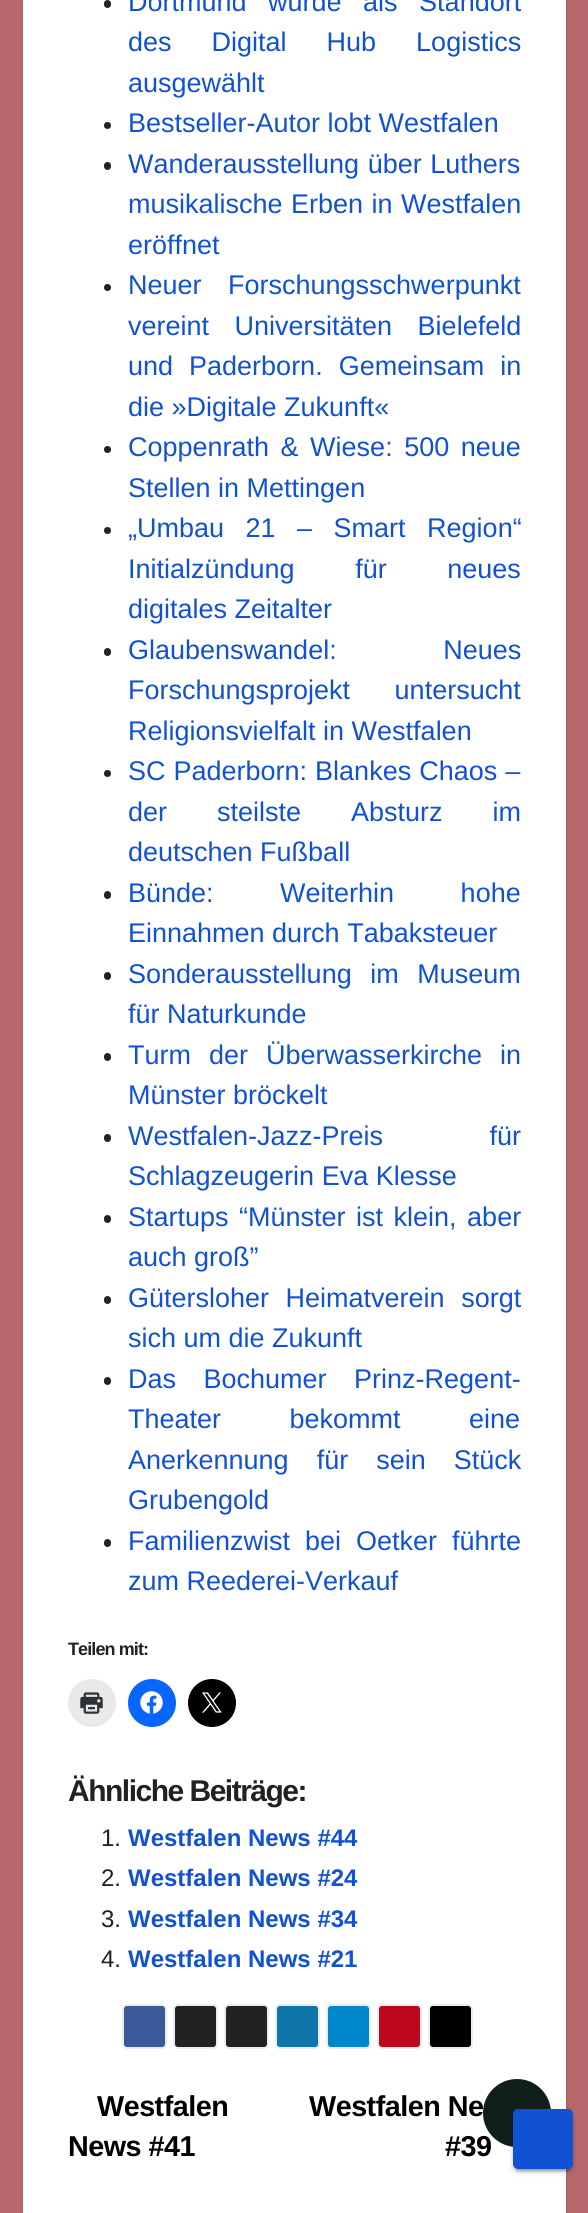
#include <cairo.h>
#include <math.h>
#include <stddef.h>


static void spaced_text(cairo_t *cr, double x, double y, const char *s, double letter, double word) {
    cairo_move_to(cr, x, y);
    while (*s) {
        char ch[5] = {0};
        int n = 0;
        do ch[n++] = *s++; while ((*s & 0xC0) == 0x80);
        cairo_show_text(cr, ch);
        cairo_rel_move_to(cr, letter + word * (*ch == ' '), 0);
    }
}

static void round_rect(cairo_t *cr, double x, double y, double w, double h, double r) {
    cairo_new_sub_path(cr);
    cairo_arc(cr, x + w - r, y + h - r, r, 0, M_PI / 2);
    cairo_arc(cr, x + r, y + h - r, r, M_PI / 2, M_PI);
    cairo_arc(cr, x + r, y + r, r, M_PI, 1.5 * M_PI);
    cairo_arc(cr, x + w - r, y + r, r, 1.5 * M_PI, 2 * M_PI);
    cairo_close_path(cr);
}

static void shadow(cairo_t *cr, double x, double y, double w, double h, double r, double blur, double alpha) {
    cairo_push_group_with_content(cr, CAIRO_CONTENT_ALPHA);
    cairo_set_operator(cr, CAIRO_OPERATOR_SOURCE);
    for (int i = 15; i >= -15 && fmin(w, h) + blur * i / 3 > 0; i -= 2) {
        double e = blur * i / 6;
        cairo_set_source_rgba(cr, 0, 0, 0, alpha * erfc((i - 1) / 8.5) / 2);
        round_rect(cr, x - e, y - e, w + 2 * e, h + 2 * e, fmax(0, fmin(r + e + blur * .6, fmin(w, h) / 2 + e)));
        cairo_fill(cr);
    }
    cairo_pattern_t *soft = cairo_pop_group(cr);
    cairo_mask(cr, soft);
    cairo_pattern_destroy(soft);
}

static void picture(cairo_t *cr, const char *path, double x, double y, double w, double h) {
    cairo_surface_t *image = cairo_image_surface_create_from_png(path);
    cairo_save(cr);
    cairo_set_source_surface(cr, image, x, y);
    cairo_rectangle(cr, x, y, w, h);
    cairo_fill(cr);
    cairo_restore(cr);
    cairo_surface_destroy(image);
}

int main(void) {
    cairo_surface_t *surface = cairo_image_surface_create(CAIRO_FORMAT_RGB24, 588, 2213);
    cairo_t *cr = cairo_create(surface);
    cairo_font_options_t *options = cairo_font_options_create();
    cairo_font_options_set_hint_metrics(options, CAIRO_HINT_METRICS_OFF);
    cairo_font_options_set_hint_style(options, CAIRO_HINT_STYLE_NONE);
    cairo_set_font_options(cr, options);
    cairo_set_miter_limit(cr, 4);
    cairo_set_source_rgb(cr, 0.718, 0.408, 0.427);
    cairo_paint(cr);
    cairo_set_source_rgb(cr, 0, 0, 0);
    shadow(cr, 23, -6, 543, 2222, 0, 2, 0.15);
    cairo_set_source_rgb(cr, 1, 1, 1);
    cairo_rectangle(cr, 23, 0, 543, 2213);
    cairo_fill(cr);
    cairo_set_source_rgb(cr, 0.133, 0.133, 0.133);
    round_rect(cr, 104, 0, 7, 8, 3.5);
    cairo_fill(cr);
    cairo_select_font_face(cr, "Liberation Sans", CAIRO_FONT_SLANT_NORMAL, CAIRO_FONT_WEIGHT_NORMAL);
    cairo_set_font_size(cr, 27);
    cairo_set_source_rgb(cr, 0.067, 0.318, 0.827);
    spaced_text(cr, 128, 11, "Dortmund wurde als Standort", 0, 14);
    spaced_text(cr, 128, 51, "des Digital Hub Logistics", 0, 32.5);
    cairo_move_to(cr, 128, 92);
    cairo_show_text(cr, "ausgewählt");
    cairo_set_source_rgb(cr, 0.133, 0.133, 0.133);
    cairo_new_path(cr);
    cairo_arc(cr, 107.5, 125.5, 3.5, 0, 2 * M_PI);
    cairo_fill(cr);
    cairo_set_source_rgb(cr, 0.067, 0.318, 0.827);
    cairo_move_to(cr, 128, 132);
    cairo_show_text(cr, "Bestseller-Autor lobt Westfalen");
    cairo_set_source_rgb(cr, 0.133, 0.133, 0.133);
    round_rect(cr, 104, 162, 7, 8, 3.5);
    cairo_fill(cr);
    cairo_set_source_rgb(cr, 0.067, 0.318, 0.827);
    spaced_text(cr, 128, 173, "Wanderausstellung über Luthers", 0, 1);
    spaced_text(cr, 128, 213, "musikalische Erben in Westfalen", 0, 1);
    cairo_move_to(cr, 128, 254);
    cairo_show_text(cr, "eröffnet");
    cairo_set_source_rgb(cr, 0.133, 0.133, 0.133);
    cairo_new_path(cr);
    cairo_arc(cr, 107.5, 287.5, 3.5, 0, 2 * M_PI);
    cairo_fill(cr);
    cairo_set_source_rgb(cr, 0.067, 0.318, 0.827);
    spaced_text(cr, 128, 294, "Neuer Forschungsschwerpunkt", 0, 19);
    spaced_text(cr, 128, 335, "vereint Universitäten Bielefeld", 0, 18);
    spaced_text(cr, 128, 375, "und Paderborn. Gemeinsam in", 0, 8.5);
    cairo_move_to(cr, 128, 416);
    cairo_show_text(cr, "die »Digitale Zukunft«");
    cairo_set_source_rgb(cr, 0.133, 0.133, 0.133);
    cairo_new_path(cr);
    cairo_arc(cr, 107.5, 449.5, 3.5, 0, 2 * M_PI);
    cairo_fill(cr);
    cairo_set_source_rgb(cr, 0.067, 0.318, 0.827);
    spaced_text(cr, 128, 456, "Coppenrath & Wiese: 500 neue", 0, 4);
    cairo_move_to(cr, 128, 497);
    cairo_show_text(cr, "Stellen in Mettingen");
    cairo_set_source_rgb(cr, 0.133, 0.133, 0.133);
    cairo_new_path(cr);
    cairo_arc(cr, 107.5, 530.5, 3.5, 0, 2 * M_PI);
    cairo_fill(cr);
    cairo_set_source_rgb(cr, 0.067, 0.318, 0.827);
    spaced_text(cr, 128, 537, "„Umbau 21 – Smart Region“", 0, 14);
    spaced_text(cr, 128, 578, "Initialzündung für neues", 0, 53);
    cairo_move_to(cr, 128, 618);
    cairo_show_text(cr, "digitales Zeitalter");
    cairo_set_source_rgb(cr, 0.133, 0.133, 0.133);
    round_rect(cr, 104, 648, 7, 8, 3.5);
    cairo_fill(cr);
    cairo_set_source_rgb(cr, 0.067, 0.318, 0.827);
    spaced_text(cr, 128, 659, "Glaubenswandel: Neues", 0, 99);
    spaced_text(cr, 128, 699, "Forschungsprojekt untersucht", 0, 37);
    cairo_move_to(cr, 128, 740);
    cairo_show_text(cr, "Religionsvielfalt in Westfalen");
    cairo_set_source_rgb(cr, 0.133, 0.133, 0.133);
    cairo_new_path(cr);
    cairo_arc(cr, 107.5, 773.5, 3.5, 0, 2 * M_PI);
    cairo_fill(cr);
    cairo_set_source_rgb(cr, 0.067, 0.318, 0.827);
    spaced_text(cr, 128, 780, "SC Paderborn: Blankes Chaos –", 0, 0.5);
    spaced_text(cr, 128, 821, "der steilste Absturz im", 0, 42.5);
    cairo_move_to(cr, 128, 861);
    cairo_show_text(cr, "deutschen Fußball");
    cairo_set_source_rgb(cr, 0.133, 0.133, 0.133);
    round_rect(cr, 104, 891, 7, 8, 3.5);
    cairo_fill(cr);
    cairo_set_source_rgb(cr, 0.067, 0.318, 0.827);
    spaced_text(cr, 128, 902, "Bünde: Weiterhin hohe", 0, 59);
    cairo_move_to(cr, 128, 942);
    cairo_show_text(cr, "Einnahmen durch Tabaksteuer");
    cairo_set_source_rgb(cr, 0.133, 0.133, 0.133);
    round_rect(cr, 104, 972, 7, 8, 3.5);
    cairo_fill(cr);
    cairo_set_source_rgb(cr, 0.067, 0.318, 0.827);
    spaced_text(cr, 128, 983, "Sonderausstellung im Museum", 0, 11);
    cairo_move_to(cr, 128, 1023);
    cairo_show_text(cr, "für Naturkunde");
    cairo_set_source_rgb(cr, 0.133, 0.133, 0.133);
    round_rect(cr, 104, 1053, 7, 8, 3.5);
    cairo_fill(cr);
    cairo_set_source_rgb(cr, 0.067, 0.318, 0.827);
    spaced_text(cr, 128, 1064, "Turm der Überwasserkirche in", 0, 10.5);
    cairo_move_to(cr, 128, 1104);
    cairo_show_text(cr, "Münster bröckelt");
    cairo_set_source_rgb(cr, 0.133, 0.133, 0.133);
    round_rect(cr, 104, 1134, 7, 8, 3.5);
    cairo_fill(cr);
    cairo_set_source_rgb(cr, 0.067, 0.318, 0.827);
    spaced_text(cr, 128, 1145, "Westfalen-Jazz-Preis für", 0, 99);
    cairo_move_to(cr, 128, 1185);
    cairo_show_text(cr, "Schlagzeugerin Eva Klesse");
    cairo_set_source_rgb(cr, 0.133, 0.133, 0.133);
    round_rect(cr, 104, 1215, 7, 8, 3.5);
    cairo_fill(cr);
    cairo_set_source_rgb(cr, 0.067, 0.318, 0.827);
    spaced_text(cr, 128, 1226, "Startups “Münster ist klein, aber", 0, 3);
    cairo_move_to(cr, 128, 1266);
    cairo_show_text(cr, "auch groß”");
    cairo_set_source_rgb(cr, 0.133, 0.133, 0.133);
    round_rect(cr, 104, 1296, 7, 8, 3.5);
    cairo_fill(cr);
    cairo_set_source_rgb(cr, 0.067, 0.318, 0.827);
    spaced_text(cr, 128, 1307, "Gütersloher Heimatverein sorgt", 0, 9);
    cairo_move_to(cr, 128, 1347);
    cairo_show_text(cr, "sich um die Zukunft");
    cairo_set_source_rgb(cr, 0.133, 0.133, 0.133);
    round_rect(cr, 104, 1377, 7, 8, 3.5);
    cairo_fill(cr);
    cairo_set_source_rgb(cr, 0.067, 0.318, 0.827);
    spaced_text(cr, 128, 1388, "Das Bochumer Prinz-Regent-", 0, 20);
    spaced_text(cr, 128, 1428, "Theater bekommt eine", 0, 61);
    spaced_text(cr, 128, 1469, "Anerkennung für sein Stück", 0, 20.5);
    cairo_move_to(cr, 128, 1509);
    cairo_show_text(cr, "Grubengold");
    cairo_set_source_rgb(cr, 0.133, 0.133, 0.133);
    round_rect(cr, 104, 1539, 7, 8, 3.5);
    cairo_fill(cr);
    cairo_set_source_rgb(cr, 0.067, 0.318, 0.827);
    spaced_text(cr, 128, 1550, "Familienzwist bei Oetker führte", 0, 7.5);
    cairo_move_to(cr, 128, 1590);
    cairo_show_text(cr, "zum Reederei-Verkauf");
    cairo_select_font_face(cr, "Liberation Sans", CAIRO_FONT_SLANT_NORMAL, CAIRO_FONT_WEIGHT_BOLD);
    cairo_set_font_size(cr, 18);
    cairo_set_source_rgb(cr, 0.129, 0.129, 0.129);
    spaced_text(cr, 68, 1655, "Teilen mit:", -0.9, 0);
    cairo_set_source_rgb(cr, 0.914, 0.914, 0.914);
    cairo_new_path(cr);
    cairo_arc(cr, 92, 1703, 24, 0, 2 * M_PI);
    cairo_fill(cr);
    picture(cr, "img1.png", 80, 1692, 23, 22);
    cairo_set_source_rgb(cr, 0.031, 0.4, 1);
    cairo_arc(cr, 152, 1703, 24, 0, 2 * M_PI);
    cairo_fill(cr);
    picture(cr, "img2.png", 140, 1691, 23, 23);
    cairo_set_source_rgb(cr, 0, 0, 0);
    cairo_arc(cr, 212, 1703, 24, 0, 2 * M_PI);
    cairo_fill(cr);
    picture(cr, "img3.png", 202, 1692, 20, 21);
    cairo_set_font_size(cr, 30);
    cairo_set_source_rgb(cr, 0.129, 0.129, 0.129);
    spaced_text(cr, 68, 1801, "Ähnliche Beiträge:", -1.5, 0);
    cairo_select_font_face(cr, "Liberation Sans", CAIRO_FONT_SLANT_NORMAL, CAIRO_FONT_WEIGHT_NORMAL);
    cairo_set_font_size(cr, 24);
    cairo_move_to(cr, 101, 1846);
    cairo_show_text(cr, "1.");
    cairo_select_font_face(cr, "Liberation Sans", CAIRO_FONT_SLANT_NORMAL, CAIRO_FONT_WEIGHT_BOLD);
    cairo_set_source_rgb(cr, 0.067, 0.318, 0.827);
    cairo_move_to(cr, 128, 1846);
    cairo_show_text(cr, "Westfalen News #44");
    cairo_select_font_face(cr, "Liberation Sans", CAIRO_FONT_SLANT_NORMAL, CAIRO_FONT_WEIGHT_NORMAL);
    cairo_set_source_rgb(cr, 0.129, 0.129, 0.129);
    cairo_move_to(cr, 101, 1886);
    cairo_show_text(cr, "2.");
    cairo_select_font_face(cr, "Liberation Sans", CAIRO_FONT_SLANT_NORMAL, CAIRO_FONT_WEIGHT_BOLD);
    cairo_set_source_rgb(cr, 0.067, 0.318, 0.827);
    cairo_move_to(cr, 128, 1886);
    cairo_show_text(cr, "Westfalen News #24");
    cairo_select_font_face(cr, "Liberation Sans", CAIRO_FONT_SLANT_NORMAL, CAIRO_FONT_WEIGHT_NORMAL);
    cairo_set_source_rgb(cr, 0.129, 0.129, 0.129);
    cairo_move_to(cr, 101, 1927);
    cairo_show_text(cr, "3.");
    cairo_select_font_face(cr, "Liberation Sans", CAIRO_FONT_SLANT_NORMAL, CAIRO_FONT_WEIGHT_BOLD);
    cairo_set_source_rgb(cr, 0.067, 0.318, 0.827);
    cairo_move_to(cr, 128, 1927);
    cairo_show_text(cr, "Westfalen News #34");
    cairo_select_font_face(cr, "Liberation Sans", CAIRO_FONT_SLANT_NORMAL, CAIRO_FONT_WEIGHT_NORMAL);
    cairo_set_source_rgb(cr, 0.129, 0.129, 0.129);
    cairo_move_to(cr, 101, 1967);
    cairo_show_text(cr, "4.");
    cairo_select_font_face(cr, "Liberation Sans", CAIRO_FONT_SLANT_NORMAL, CAIRO_FONT_WEIGHT_BOLD);
    cairo_set_source_rgb(cr, 0.067, 0.318, 0.827);
    cairo_move_to(cr, 128, 1967);
    cairo_show_text(cr, "Westfalen News #21");
    cairo_set_source_rgb(cr, 0.231, 0.349, 0.596);
    round_rect(cr, 123, 2005, 43, 43, 4);
    cairo_fill_preserve(cr);
    cairo_set_source_rgb(cr, 0.922, 0.922, 0.922);
    cairo_stroke(cr);
    cairo_set_source_rgb(cr, 0.133, 0.133, 0.133);
    round_rect(cr, 174, 2005, 43, 43, 4);
    cairo_fill_preserve(cr);
    cairo_set_source_rgb(cr, 0.922, 0.922, 0.922);
    cairo_stroke(cr);
    cairo_set_source_rgb(cr, 0.133, 0.133, 0.133);
    round_rect(cr, 225, 2005, 43, 43, 4);
    cairo_fill_preserve(cr);
    cairo_set_source_rgb(cr, 0.922, 0.922, 0.922);
    cairo_stroke(cr);
    cairo_set_source_rgb(cr, 0.055, 0.463, 0.659);
    round_rect(cr, 276, 2005, 43, 43, 4);
    cairo_fill_preserve(cr);
    cairo_set_source_rgb(cr, 0.922, 0.922, 0.922);
    cairo_stroke(cr);
    cairo_set_source_rgb(cr, 0, 0.533, 0.8);
    round_rect(cr, 327, 2005, 43, 43, 4);
    cairo_fill_preserve(cr);
    cairo_set_source_rgb(cr, 0.922, 0.922, 0.922);
    cairo_stroke(cr);
    cairo_set_source_rgb(cr, 0.741, 0.031, 0.11);
    round_rect(cr, 378, 2005, 43, 43, 4);
    cairo_fill_preserve(cr);
    cairo_set_source_rgb(cr, 0.922, 0.922, 0.922);
    cairo_stroke(cr);
    cairo_set_source_rgb(cr, 0, 0, 0);
    round_rect(cr, 429, 2005, 43, 43, 4);
    cairo_fill_preserve(cr);
    cairo_set_source_rgb(cr, 0.922, 0.922, 0.922);
    cairo_stroke(cr);
    cairo_set_font_size(cr, 28.75);
    cairo_set_source_rgb(cr, 0, 0, 0);
    spaced_text(cr, 97, 2116, "Westfalen", -0.5, 0);
    spaced_text(cr, 68, 2156, "News #41", -0.5, 0);
    spaced_text(cr, 309, 2116, "Westfalen Ne", -0.5, 0);
    spaced_text(cr, 445, 2156, "#39", -0.5, 0);
    cairo_set_source_rgb(cr, 0.067, 0.122, 0.11);
    cairo_new_path(cr);
    cairo_arc(cr, 517, 2113, 34, 0, 2 * M_PI);
    cairo_fill(cr);
    cairo_set_source_rgb(cr, 0, 0, 0);
    shadow(cr, 513, 2111, 60, 60, 5, 4, 0.12);
    shadow(cr, 516, 2117, 54, 54, 1.5, 1, 0.2);
    shadow(cr, 513, 2112, 60, 60, 5, 1.5, 0.14);
    cairo_set_source_rgb(cr, 0.067, 0.318, 0.827);
    round_rect(cr, 514.5, 2110.5, 57, 57, 3.5);
    cairo_fill_preserve(cr);
    cairo_set_line_width(cr, 3);
    cairo_stroke(cr);
    cairo_surface_write_to_png(surface, "page.png");
    cairo_font_options_destroy(options);
    cairo_destroy(cr);
    cairo_surface_destroy(surface);
    return 0;
}
